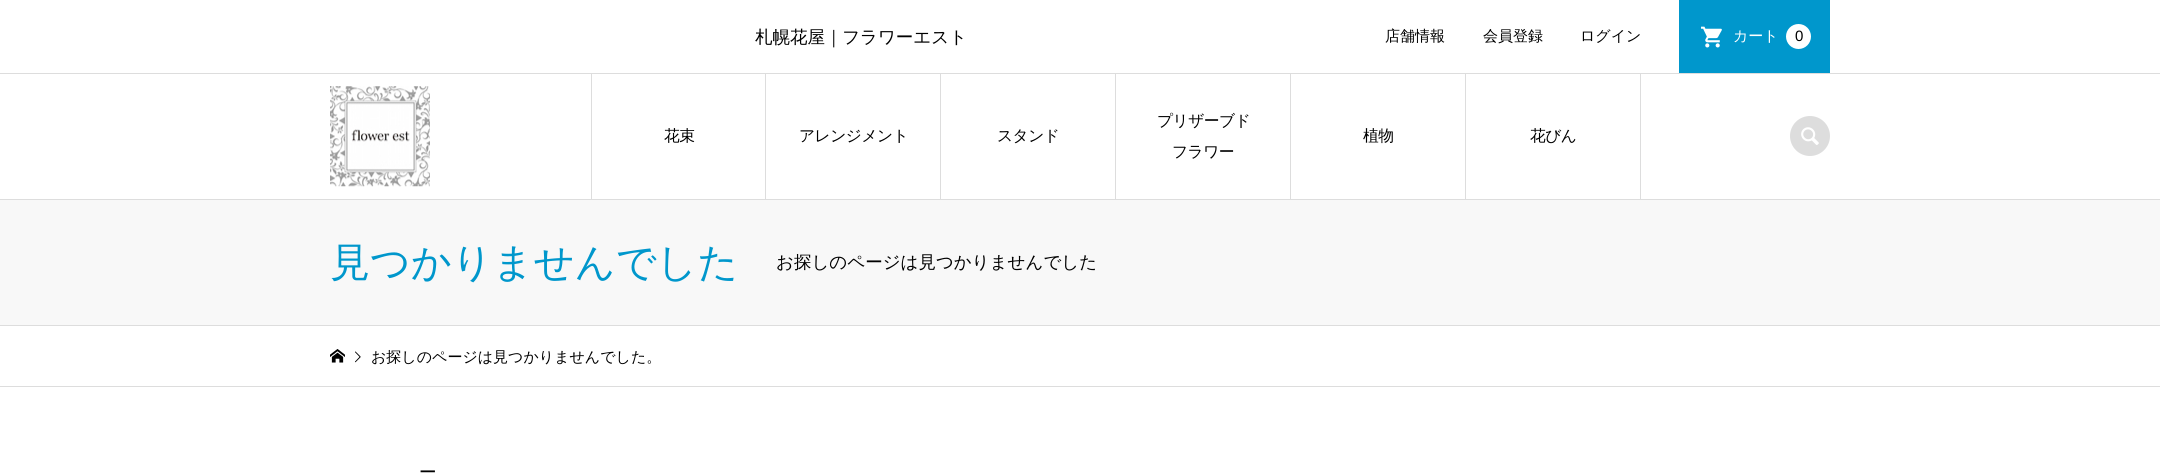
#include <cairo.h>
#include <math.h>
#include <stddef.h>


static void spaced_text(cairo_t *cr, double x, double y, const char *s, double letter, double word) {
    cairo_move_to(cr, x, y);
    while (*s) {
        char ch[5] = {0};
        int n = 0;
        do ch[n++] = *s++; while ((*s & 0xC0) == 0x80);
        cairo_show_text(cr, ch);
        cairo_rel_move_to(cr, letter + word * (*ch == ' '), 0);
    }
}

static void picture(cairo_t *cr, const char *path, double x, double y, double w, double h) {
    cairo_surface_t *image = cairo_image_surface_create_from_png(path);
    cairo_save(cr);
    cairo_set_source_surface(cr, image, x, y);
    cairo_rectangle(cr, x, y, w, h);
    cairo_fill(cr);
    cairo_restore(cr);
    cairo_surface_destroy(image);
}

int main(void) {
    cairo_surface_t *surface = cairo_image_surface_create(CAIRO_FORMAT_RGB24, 2160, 475);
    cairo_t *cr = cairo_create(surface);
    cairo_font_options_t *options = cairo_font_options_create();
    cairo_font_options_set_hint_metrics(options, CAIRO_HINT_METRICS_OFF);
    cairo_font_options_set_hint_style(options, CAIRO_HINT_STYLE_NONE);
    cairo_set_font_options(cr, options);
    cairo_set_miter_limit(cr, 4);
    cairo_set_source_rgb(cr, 1, 1, 1);
    cairo_paint(cr);
    cairo_set_source_rgb(cr, 0.867, 0.867, 0.867);
    cairo_rectangle(cr, 0, 73, 2160, 1);
    cairo_fill(cr);
    cairo_select_font_face(cr, "WenQuanYi Zen Hei Medium", CAIRO_FONT_SLANT_NORMAL, CAIRO_FONT_WEIGHT_NORMAL);
    cairo_set_font_size(cr, 17.5);
    cairo_set_source_rgb(cr, 0, 0, 0);
    cairo_move_to(cr, 755, 43);
    cairo_show_text(cr, "札幌花屋｜フラワーエスト");
    cairo_set_font_size(cr, 15);
    cairo_move_to(cr, 1385, 41);
    cairo_show_text(cr, "店舗情報");
    cairo_move_to(cr, 1483, 41);
    cairo_show_text(cr, "会員登録");
    cairo_move_to(cr, 1580, 41);
    cairo_show_text(cr, "ログイン");
    cairo_set_source_rgb(cr, 0, 0.592, 0.8);
    cairo_rectangle(cr, 1679, 0, 151, 73);
    cairo_fill(cr);
    picture(cr, "img1.png", 1701, 26, 21, 22);
    cairo_set_source_rgb(cr, 1, 1, 1);
    cairo_move_to(cr, 1733, 41);
    cairo_show_text(cr, "カート");
    cairo_new_path(cr);
    cairo_arc(cr, 1798.5, 36.5, 12.5, 0, 2 * M_PI);
    cairo_fill(cr);
    cairo_select_font_face(cr, "Liberation Sans", CAIRO_FONT_SLANT_NORMAL, CAIRO_FONT_WEIGHT_NORMAL);
    cairo_set_source_rgb(cr, 0, 0, 0);
    cairo_move_to(cr, 1795, 41);
    cairo_show_text(cr, "0");
    cairo_set_source_rgb(cr, 0.867, 0.867, 0.867);
    cairo_rectangle(cr, 0, 199, 2160, 1);
    cairo_fill(cr);
    picture(cr, "img2.png", 330, 86, 100, 101);
    cairo_rectangle(cr, 765, 74, 1, 126);
    cairo_fill(cr);
    cairo_rectangle(cr, 591, 74, 1, 126);
    cairo_fill(cr);
    cairo_select_font_face(cr, "WenQuanYi Zen Hei Medium", CAIRO_FONT_SLANT_NORMAL, CAIRO_FONT_WEIGHT_NORMAL);
    cairo_set_font_size(cr, 15.75);
    cairo_set_source_rgb(cr, 0, 0, 0);
    spaced_text(cr, 664, 141, "花束", -0.5, 0);
    cairo_set_source_rgb(cr, 0.867, 0.867, 0.867);
    cairo_rectangle(cr, 940, 74, 1, 126);
    cairo_fill(cr);
    cairo_set_source_rgb(cr, 0, 0, 0);
    spaced_text(cr, 799, 141, "アレンジメント", -0.5, 0);
    cairo_set_source_rgb(cr, 0.867, 0.867, 0.867);
    cairo_rectangle(cr, 1115, 74, 1, 126);
    cairo_fill(cr);
    cairo_set_source_rgb(cr, 0, 0, 0);
    spaced_text(cr, 997, 141, "スタンド", -0.5, 0);
    cairo_set_source_rgb(cr, 0.867, 0.867, 0.867);
    cairo_rectangle(cr, 1290, 74, 1, 126);
    cairo_fill(cr);
    cairo_set_source_rgb(cr, 0, 0, 0);
    spaced_text(cr, 1157, 126, "プリザーブド", -0.5, 0);
    spaced_text(cr, 1172, 157, "フラワー", -0.5, 0);
    cairo_set_source_rgb(cr, 0.867, 0.867, 0.867);
    cairo_rectangle(cr, 1465, 74, 1, 126);
    cairo_fill(cr);
    cairo_set_source_rgb(cr, 0, 0, 0);
    spaced_text(cr, 1363, 141, "植物", -0.5, 0);
    cairo_set_source_rgb(cr, 0.867, 0.867, 0.867);
    cairo_rectangle(cr, 1640, 74, 1, 126);
    cairo_fill(cr);
    cairo_set_source_rgb(cr, 0, 0, 0);
    spaced_text(cr, 1530, 141, "花びん", -0.5, 0);
    cairo_set_source_rgb(cr, 0.867, 0.867, 0.867);
    cairo_new_path(cr);
    cairo_arc(cr, 1810, 136, 20, 0, 2 * M_PI);
    cairo_fill(cr);
    picture(cr, "img3.png", 1801, 127, 18, 18);
    cairo_set_source_rgb(cr, 0.969, 0.969, 0.969);
    cairo_rectangle(cr, 0, 200, 2160, 125);
    cairo_fill(cr);
    cairo_set_source_rgb(cr, 0.867, 0.867, 0.867);
    cairo_rectangle(cr, 0, 325, 2160, 1);
    cairo_fill(cr);
    cairo_set_font_size(cr, 40);
    cairo_set_source_rgb(cr, 0, 0.592, 0.8);
    cairo_move_to(cr, 330, 276);
    cairo_show_text(cr, "見つかりませんでした");
    cairo_set_font_size(cr, 17.5);
    cairo_set_source_rgb(cr, 0, 0, 0);
    cairo_move_to(cr, 776, 268);
    cairo_show_text(cr, "お探しのページは見つかりませんでした");
    cairo_set_source_rgb(cr, 0.867, 0.867, 0.867);
    cairo_rectangle(cr, 0, 386, 2160, 1);
    cairo_fill(cr);
    picture(cr, "img4.png", 330, 349, 15, 14);
    picture(cr, "img5.png", 355, 351, 6, 12);
    cairo_set_font_size(cr, 15);
    cairo_set_source_rgb(cr, 0, 0, 0);
    cairo_move_to(cr, 371, 362);
    cairo_show_text(cr, "お探しのページは見つかりませんでした。");
    cairo_set_font_size(cr, 17.5);
    cairo_move_to(cr, 419, 478);
    cairo_show_text(cr, "ー");
    cairo_surface_write_to_png(surface, "page.png");
    cairo_font_options_destroy(options);
    cairo_destroy(cr);
    cairo_surface_destroy(surface);
    return 0;
}
